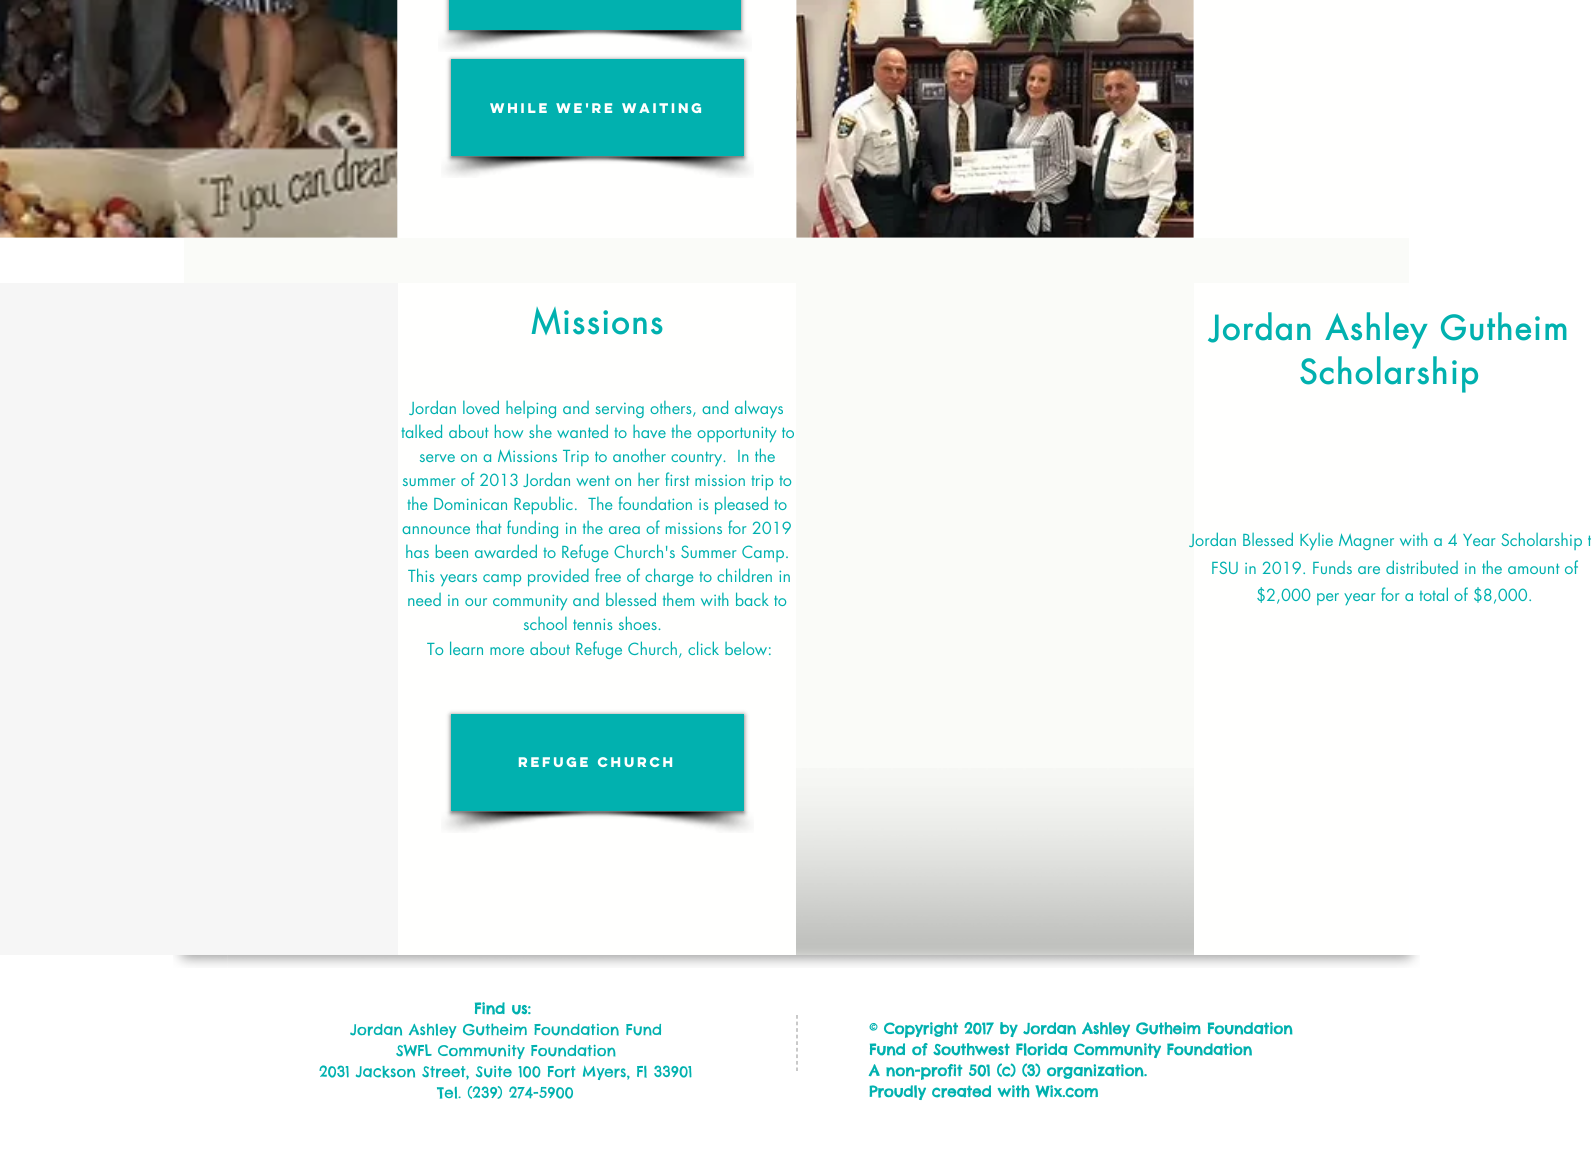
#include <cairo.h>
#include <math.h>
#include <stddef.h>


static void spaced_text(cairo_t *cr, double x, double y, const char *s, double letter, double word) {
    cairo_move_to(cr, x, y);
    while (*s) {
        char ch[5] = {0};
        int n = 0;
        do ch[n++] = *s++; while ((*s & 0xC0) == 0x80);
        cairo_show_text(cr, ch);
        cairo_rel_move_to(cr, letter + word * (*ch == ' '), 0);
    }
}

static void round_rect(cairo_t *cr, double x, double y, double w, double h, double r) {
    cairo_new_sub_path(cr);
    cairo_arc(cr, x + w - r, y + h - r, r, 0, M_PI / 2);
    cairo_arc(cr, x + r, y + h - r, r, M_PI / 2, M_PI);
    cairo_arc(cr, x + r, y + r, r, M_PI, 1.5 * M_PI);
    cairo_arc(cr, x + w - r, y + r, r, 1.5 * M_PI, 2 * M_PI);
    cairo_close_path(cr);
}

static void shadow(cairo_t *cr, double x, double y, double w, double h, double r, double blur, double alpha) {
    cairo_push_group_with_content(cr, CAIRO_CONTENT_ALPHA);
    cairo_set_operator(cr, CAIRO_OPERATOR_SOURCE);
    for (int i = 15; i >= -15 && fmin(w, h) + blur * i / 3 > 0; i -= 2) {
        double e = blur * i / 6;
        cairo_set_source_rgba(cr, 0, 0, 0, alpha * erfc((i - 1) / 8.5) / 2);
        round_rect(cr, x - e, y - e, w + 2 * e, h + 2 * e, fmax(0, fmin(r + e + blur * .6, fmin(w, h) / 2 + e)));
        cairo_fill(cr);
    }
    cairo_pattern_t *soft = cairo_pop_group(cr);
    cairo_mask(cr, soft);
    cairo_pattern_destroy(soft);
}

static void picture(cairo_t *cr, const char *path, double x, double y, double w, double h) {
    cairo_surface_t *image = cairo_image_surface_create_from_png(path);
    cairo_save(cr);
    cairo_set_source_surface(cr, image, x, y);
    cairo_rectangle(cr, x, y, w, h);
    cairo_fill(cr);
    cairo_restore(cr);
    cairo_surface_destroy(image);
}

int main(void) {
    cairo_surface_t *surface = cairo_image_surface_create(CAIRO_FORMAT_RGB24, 1591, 1155);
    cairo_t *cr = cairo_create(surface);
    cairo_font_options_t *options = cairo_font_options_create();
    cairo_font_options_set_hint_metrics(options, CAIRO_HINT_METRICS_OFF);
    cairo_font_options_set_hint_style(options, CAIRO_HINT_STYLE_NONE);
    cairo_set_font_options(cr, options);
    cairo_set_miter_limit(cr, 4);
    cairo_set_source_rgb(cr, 1, 1, 1);
    cairo_paint(cr);
    picture(cr, "img1.png", 173, 955, 55, 13);
    picture(cr, "img2.png", 227, 768, 1138, 200);
    cairo_set_source_rgba(cr, 0.945, 0.957, 0.929, 0.41);
    cairo_rectangle(cr, 184, 0, 1225, 955);
    cairo_fill(cr);
    picture(cr, "img3.png", 1365, 955, 55, 13);
    cairo_set_source_rgb(cr, 0.961, 0.961, 0.961);
    cairo_rectangle(cr, 0, 0, 398, 238);
    cairo_fill(cr);
    picture(cr, "img4.png", 0, 0, 398, 238);
    cairo_set_source_rgb(cr, 1, 1, 0.996);
    cairo_rectangle(cr, 398, 0, 398, 238);
    cairo_fill(cr);
    picture(cr, "img5.png", 438, 30, 184, 22);
    picture(cr, "img6.png", 573, 30, 179, 22);
    cairo_set_source_rgb(cr, 0, 0, 0);
    shadow(cr, 449, -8, 292, 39, 0, 2.5, 0.6);
    cairo_set_source_rgb(cr, 0.004, 0.694, 0.686);
    cairo_rectangle(cr, 449, 0, 292, 30);
    cairo_fill(cr);
    picture(cr, "img7.png", 441, 156, 185, 22);
    picture(cr, "img8.png", 575, 156, 179, 22);
    cairo_set_source_rgb(cr, 0, 0, 0);
    shadow(cr, 451, 60, 293, 98, 0, 2.5, 0.6);
    cairo_set_source_rgb(cr, 0.004, 0.694, 0.686);
    cairo_rectangle(cr, 451, 59, 293, 97);
    cairo_fill(cr);
    cairo_select_font_face(cr, "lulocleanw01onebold", CAIRO_FONT_SLANT_NORMAL, CAIRO_FONT_WEIGHT_BOLD);
    cairo_set_font_size(cr, 12.5);
    cairo_set_source_rgb(cr, 1, 1, 1);
    cairo_move_to(cr, 490, 113);
    cairo_show_text(cr, "While We're Waiting");
    picture(cr, "img9.png", 796, 0, 398, 238);
    cairo_set_source_rgb(cr, 1, 1, 0.996);
    cairo_rectangle(cr, 1194, 0, 215, 238);
    cairo_fill(cr);
    cairo_set_source_rgb(cr, 0.961, 0.961, 0.961);
    cairo_rectangle(cr, 0, 283, 398, 672);
    cairo_fill(cr);
    cairo_set_source_rgb(cr, 1, 1, 0.996);
    cairo_rectangle(cr, 398, 283, 398, 672);
    cairo_fill(cr);
    cairo_select_font_face(cr, "futura", CAIRO_FONT_SLANT_NORMAL, CAIRO_FONT_WEIGHT_BOLD);
    cairo_set_font_size(cr, 32.5);
    cairo_set_source_rgb(cr, 0.004, 0.694, 0.686);
    spaced_text(cr, 531, 334, "Missions", 1.6, 0);
    cairo_select_font_face(cr, "futura", CAIRO_FONT_SLANT_NORMAL, CAIRO_FONT_WEIGHT_NORMAL);
    cairo_set_font_size(cr, 16.25);
    cairo_move_to(cr, 410, 414);
    cairo_show_text(cr, "Jordan loved helping and serving others, and always");
    cairo_move_to(cr, 401, 438);
    cairo_show_text(cr, "talked about how she wanted to have the opportunity to");
    cairo_move_to(cr, 419, 462);
    cairo_show_text(cr, "serve on a Missions Trip to another country.  In the");
    cairo_move_to(cr, 402, 486);
    cairo_show_text(cr, "summer of 2013 Jordan went on her first mission trip to");
    cairo_move_to(cr, 407, 510);
    cairo_show_text(cr, "the Dominican Republic.  The foundation is pleased to");
    cairo_move_to(cr, 402, 534);
    cairo_show_text(cr, "announce that funding in the area of missions for 2019");
    cairo_move_to(cr, 405, 558);
    cairo_show_text(cr, "has been awarded to Refuge Church's Summer Camp.");
    cairo_move_to(cr, 408, 582);
    cairo_show_text(cr, "This years camp provided free of charge to children in");
    cairo_move_to(cr, 407, 606);
    cairo_show_text(cr, "need in our community and blessed them with back to");
    cairo_move_to(cr, 523, 630);
    cairo_show_text(cr, "school tennis shoes.");
    cairo_move_to(cr, 427, 655);
    cairo_show_text(cr, "To learn more about Refuge Church, click below:");
    picture(cr, "img7.png", 441, 811, 185, 22);
    picture(cr, "img8.png", 575, 811, 179, 22);
    cairo_set_source_rgb(cr, 0, 0, 0);
    shadow(cr, 451, 715, 293, 98, 0, 2.5, 0.6);
    cairo_set_source_rgb(cr, 0.004, 0.694, 0.686);
    cairo_rectangle(cr, 451, 714, 293, 97);
    cairo_fill(cr);
    cairo_select_font_face(cr, "lulocleanw01onebold", CAIRO_FONT_SLANT_NORMAL, CAIRO_FONT_WEIGHT_BOLD);
    cairo_set_font_size(cr, 12.5);
    cairo_set_source_rgb(cr, 1, 1, 1);
    cairo_move_to(cr, 518, 767);
    cairo_show_text(cr, "Refuge Church");
    cairo_set_source_rgb(cr, 1, 1, 0.996);
    cairo_rectangle(cr, 1194, 283, 215, 672);
    cairo_fill(cr);
    cairo_select_font_face(cr, "futura", CAIRO_FONT_SLANT_NORMAL, CAIRO_FONT_WEIGHT_BOLD);
    cairo_set_font_size(cr, 32.5);
    cairo_set_source_rgb(cr, 0.004, 0.694, 0.686);
    spaced_text(cr, 1210, 340, "Jordan Ashley Gutheim", 1.6, 0);
    spaced_text(cr, 1299, 384, "Scholarship", 1.6, 0);
    cairo_select_font_face(cr, "futura", CAIRO_FONT_SLANT_NORMAL, CAIRO_FONT_WEIGHT_NORMAL);
    cairo_set_font_size(cr, 16.25);
    cairo_move_to(cr, 1190, 546);
    cairo_show_text(cr, "Jordan Blessed Kylie Magner with a 4 Year Scholarship t");
    cairo_move_to(cr, 1211, 574);
    cairo_show_text(cr, "FSU in 2019. Funds are distributed in the amount of");
    cairo_move_to(cr, 1256, 601);
    cairo_show_text(cr, "$2,000 per year for a total of $8,000.");
    cairo_select_font_face(cr, "Chelsea Market", CAIRO_FONT_SLANT_NORMAL, CAIRO_FONT_WEIGHT_BOLD);
    cairo_set_font_size(cr, 15);
    cairo_move_to(cr, 474, 1014);
    cairo_show_text(cr, "Find us:");
    cairo_select_font_face(cr, "Chelsea Market", CAIRO_FONT_SLANT_NORMAL, CAIRO_FONT_WEIGHT_NORMAL);
    cairo_move_to(cr, 350, 1035);
    cairo_show_text(cr, "Jordan Ashley Gutheim Foundation Fund");
    cairo_move_to(cr, 396, 1056);
    cairo_show_text(cr, "SWFL Community Foundation");
    cairo_move_to(cr, 319, 1077);
    cairo_show_text(cr, "2031 Jackson Street, Suite 100 Fort Myers, Fl 33901");
    cairo_move_to(cr, 437, 1098);
    cairo_show_text(cr, "Tel. (239) 274-5900");
    cairo_new_path(cr);
    cairo_move_to(cr, 797, 1015);
    cairo_line_to(cr, 797, 1071);
    cairo_set_source_rgb(cr, 0.651, 0.651, 0.651);
    cairo_set_line_width(cr, 1.2);
    cairo_set_dash(cr, (double[]){3.75, 2.81}, 2, 0);
    cairo_stroke(cr);
    cairo_select_font_face(cr, "Chelsea Market", CAIRO_FONT_SLANT_NORMAL, CAIRO_FONT_WEIGHT_BOLD);
    cairo_set_source_rgb(cr, 0.004, 0.694, 0.686);
    cairo_move_to(cr, 869, 1034);
    cairo_show_text(cr, "© Copyright 2017 by Jordan Ashley Gutheim Foundation");
    cairo_move_to(cr, 869, 1055);
    cairo_show_text(cr, "Fund of Southwest Florida Community Foundation");
    cairo_move_to(cr, 869, 1076);
    cairo_show_text(cr, "A non-profit 501 (c) (3) organization.");
    cairo_move_to(cr, 869, 1097);
    cairo_show_text(cr, "Proudly created with Wix.com");
    cairo_surface_write_to_png(surface, "page.png");
    cairo_font_options_destroy(options);
    cairo_destroy(cr);
    cairo_surface_destroy(surface);
    return 0;
}
